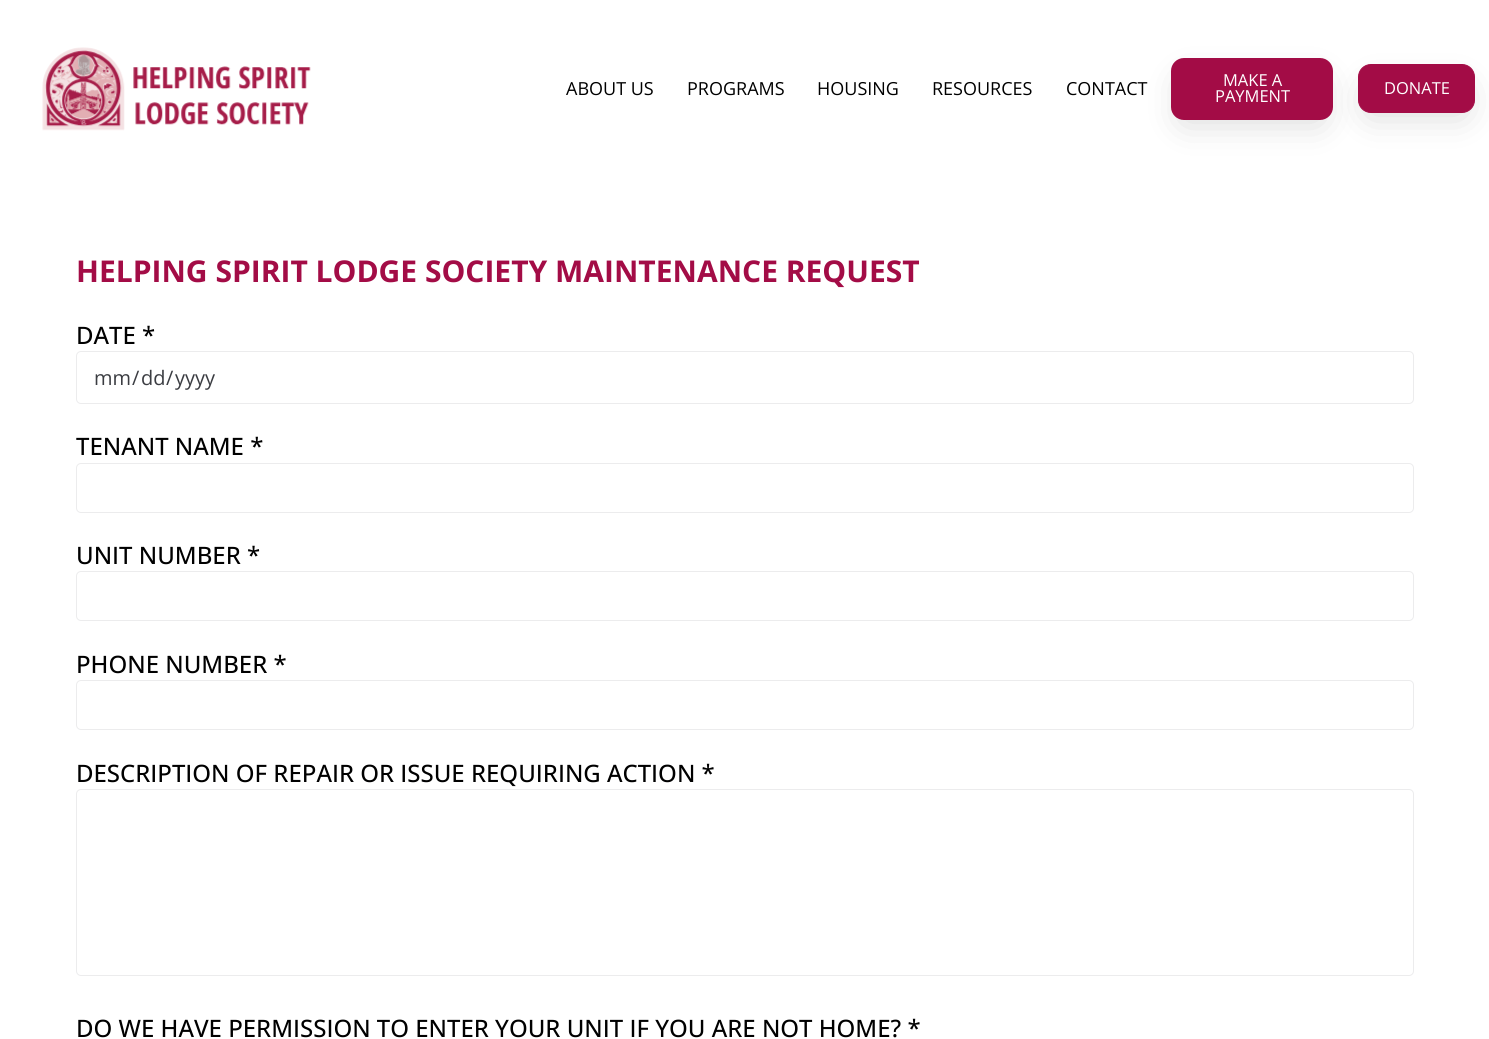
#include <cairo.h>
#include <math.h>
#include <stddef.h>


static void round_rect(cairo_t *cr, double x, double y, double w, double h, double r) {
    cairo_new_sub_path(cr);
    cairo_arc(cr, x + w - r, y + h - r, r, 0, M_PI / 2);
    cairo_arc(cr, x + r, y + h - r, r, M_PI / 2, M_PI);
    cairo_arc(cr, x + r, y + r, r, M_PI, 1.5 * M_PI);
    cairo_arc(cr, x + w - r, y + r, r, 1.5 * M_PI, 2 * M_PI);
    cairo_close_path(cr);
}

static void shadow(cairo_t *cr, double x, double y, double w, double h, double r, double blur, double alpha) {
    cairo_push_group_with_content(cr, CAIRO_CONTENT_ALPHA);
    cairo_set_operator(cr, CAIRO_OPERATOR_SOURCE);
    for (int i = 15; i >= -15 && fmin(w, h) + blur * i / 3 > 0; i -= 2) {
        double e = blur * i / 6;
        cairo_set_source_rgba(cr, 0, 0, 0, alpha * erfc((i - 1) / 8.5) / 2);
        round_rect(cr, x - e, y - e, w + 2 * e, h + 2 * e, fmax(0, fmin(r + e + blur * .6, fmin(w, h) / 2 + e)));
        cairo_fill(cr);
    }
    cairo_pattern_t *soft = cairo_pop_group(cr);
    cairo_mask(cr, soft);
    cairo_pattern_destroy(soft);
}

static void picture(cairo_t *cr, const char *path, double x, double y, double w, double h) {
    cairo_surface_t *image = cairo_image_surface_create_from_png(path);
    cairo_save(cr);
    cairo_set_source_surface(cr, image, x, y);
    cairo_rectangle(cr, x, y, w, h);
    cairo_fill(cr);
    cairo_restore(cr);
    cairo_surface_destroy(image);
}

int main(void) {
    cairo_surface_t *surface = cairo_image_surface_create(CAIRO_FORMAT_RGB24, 1489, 1039);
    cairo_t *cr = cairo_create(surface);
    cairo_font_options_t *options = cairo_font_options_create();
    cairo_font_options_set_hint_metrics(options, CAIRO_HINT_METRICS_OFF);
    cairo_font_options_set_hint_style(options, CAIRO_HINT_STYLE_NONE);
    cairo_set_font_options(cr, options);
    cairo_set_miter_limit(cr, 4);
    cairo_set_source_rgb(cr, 1, 1, 1);
    cairo_paint(cr);
    picture(cr, "img1.png", 42, 47, 269, 84);
    cairo_select_font_face(cr, "Open Sans", CAIRO_FONT_SLANT_NORMAL, CAIRO_FONT_WEIGHT_NORMAL);
    cairo_set_font_size(cr, 18);
    cairo_set_source_rgb(cr, 0, 0, 0);
    cairo_move_to(cr, 566, 95);
    cairo_show_text(cr, "ABOUT US");
    cairo_move_to(cr, 687, 95);
    cairo_show_text(cr, "PROGRAMS");
    cairo_move_to(cr, 817, 95);
    cairo_show_text(cr, "HOUSING");
    cairo_move_to(cr, 932, 95);
    cairo_show_text(cr, "RESOURCES");
    cairo_set_source_rgb(cr, 0, 0, 0);
    shadow(cr, 1183, 81, 138, 40, 1, 19, 0.16);
    cairo_set_source_rgb(cr, 0, 0, 0);
    cairo_move_to(cr, 1066, 95);
    cairo_show_text(cr, "CONTACT");
    cairo_set_source_rgb(cr, 0.639, 0.047, 0.275);
    round_rect(cr, 1171, 58, 162, 62, 13);
    cairo_fill(cr);
    cairo_set_font_size(cr, 16.5);
    cairo_set_source_rgb(cr, 1, 1, 1);
    cairo_move_to(cr, 1223, 86);
    cairo_show_text(cr, "MAKE A");
    cairo_move_to(cr, 1215, 102);
    cairo_show_text(cr, "PAYMENT");
    cairo_set_source_rgb(cr, 0, 0, 0);
    shadow(cr, 1369, 88, 95, 26, 1, 19, 0.16);
    cairo_set_source_rgb(cr, 0.639, 0.047, 0.275);
    round_rect(cr, 1358.5, 64.5, 116, 48, 12.5);
    cairo_fill_preserve(cr);
    cairo_set_line_width(cr, 1);
    cairo_stroke(cr);
    cairo_set_source_rgb(cr, 1, 1, 1);
    cairo_move_to(cr, 1384, 94);
    cairo_show_text(cr, "DONATE");
    cairo_select_font_face(cr, "Open Sans", CAIRO_FONT_SLANT_NORMAL, CAIRO_FONT_WEIGHT_BOLD);
    cairo_set_font_size(cr, 30);
    cairo_set_source_rgb(cr, 0.639, 0.047, 0.275);
    cairo_move_to(cr, 76, 282);
    cairo_show_text(cr, "HELPING SPIRIT LODGE SOCIETY MAINTENANCE REQUEST");
    cairo_select_font_face(cr, "Open Sans Medium", CAIRO_FONT_SLANT_NORMAL, CAIRO_FONT_WEIGHT_NORMAL);
    cairo_set_font_size(cr, 24);
    cairo_set_source_rgb(cr, 0, 0, 0);
    cairo_move_to(cr, 76, 344);
    cairo_show_text(cr, "DATE *");
    round_rect(cr, 76.5, 351.5, 1337, 52, 4.5);
    cairo_set_source_rgb(cr, 0.922, 0.925, 0.929);
    cairo_stroke(cr);
    cairo_select_font_face(cr, "Open Sans", CAIRO_FONT_SLANT_NORMAL, CAIRO_FONT_WEIGHT_NORMAL);
    cairo_set_font_size(cr, 20);
    cairo_set_source_rgb(cr, 0.231, 0.239, 0.259);
    cairo_move_to(cr, 94, 385);
    cairo_show_text(cr, "mm");
    cairo_move_to(cr, 132, 385);
    cairo_show_text(cr, "/");
    cairo_move_to(cr, 141, 385);
    cairo_show_text(cr, "dd");
    cairo_move_to(cr, 166, 385);
    cairo_show_text(cr, "/");
    cairo_move_to(cr, 175, 385);
    cairo_show_text(cr, "yyyy");
    cairo_select_font_face(cr, "Open Sans Medium", CAIRO_FONT_SLANT_NORMAL, CAIRO_FONT_WEIGHT_NORMAL);
    cairo_set_font_size(cr, 24);
    cairo_set_source_rgb(cr, 0, 0, 0);
    cairo_move_to(cr, 76, 455);
    cairo_show_text(cr, "TENANT NAME *");
    round_rect(cr, 76.5, 463.5, 1337, 49, 4.5);
    cairo_set_source_rgb(cr, 0.922, 0.925, 0.929);
    cairo_stroke(cr);
    cairo_set_source_rgb(cr, 0, 0, 0);
    cairo_move_to(cr, 76, 564);
    cairo_show_text(cr, "UNIT NUMBER *");
    round_rect(cr, 76.5, 571.5, 1337, 49, 4.5);
    cairo_set_source_rgb(cr, 0.922, 0.925, 0.929);
    cairo_stroke(cr);
    cairo_set_source_rgb(cr, 0, 0, 0);
    cairo_move_to(cr, 76, 673);
    cairo_show_text(cr, "PHONE NUMBER *");
    round_rect(cr, 76.5, 680.5, 1337, 49, 4.5);
    cairo_set_source_rgb(cr, 0.922, 0.925, 0.929);
    cairo_stroke(cr);
    cairo_set_source_rgb(cr, 0, 0, 0);
    cairo_move_to(cr, 76, 782);
    cairo_show_text(cr, "DESCRIPTION OF REPAIR OR ISSUE REQUIRING ACTION *");
    round_rect(cr, 76.5, 789.5, 1337, 186, 4.5);
    cairo_set_source_rgb(cr, 0.922, 0.925, 0.929);
    cairo_stroke(cr);
    cairo_set_source_rgb(cr, 0, 0, 0);
    cairo_move_to(cr, 76, 1037);
    cairo_show_text(cr, "DO WE HAVE PERMISSION TO ENTER YOUR UNIT IF YOU ARE NOT HOME? *");
    cairo_surface_write_to_png(surface, "page.png");
    cairo_font_options_destroy(options);
    cairo_destroy(cr);
    cairo_surface_destroy(surface);
    return 0;
}
